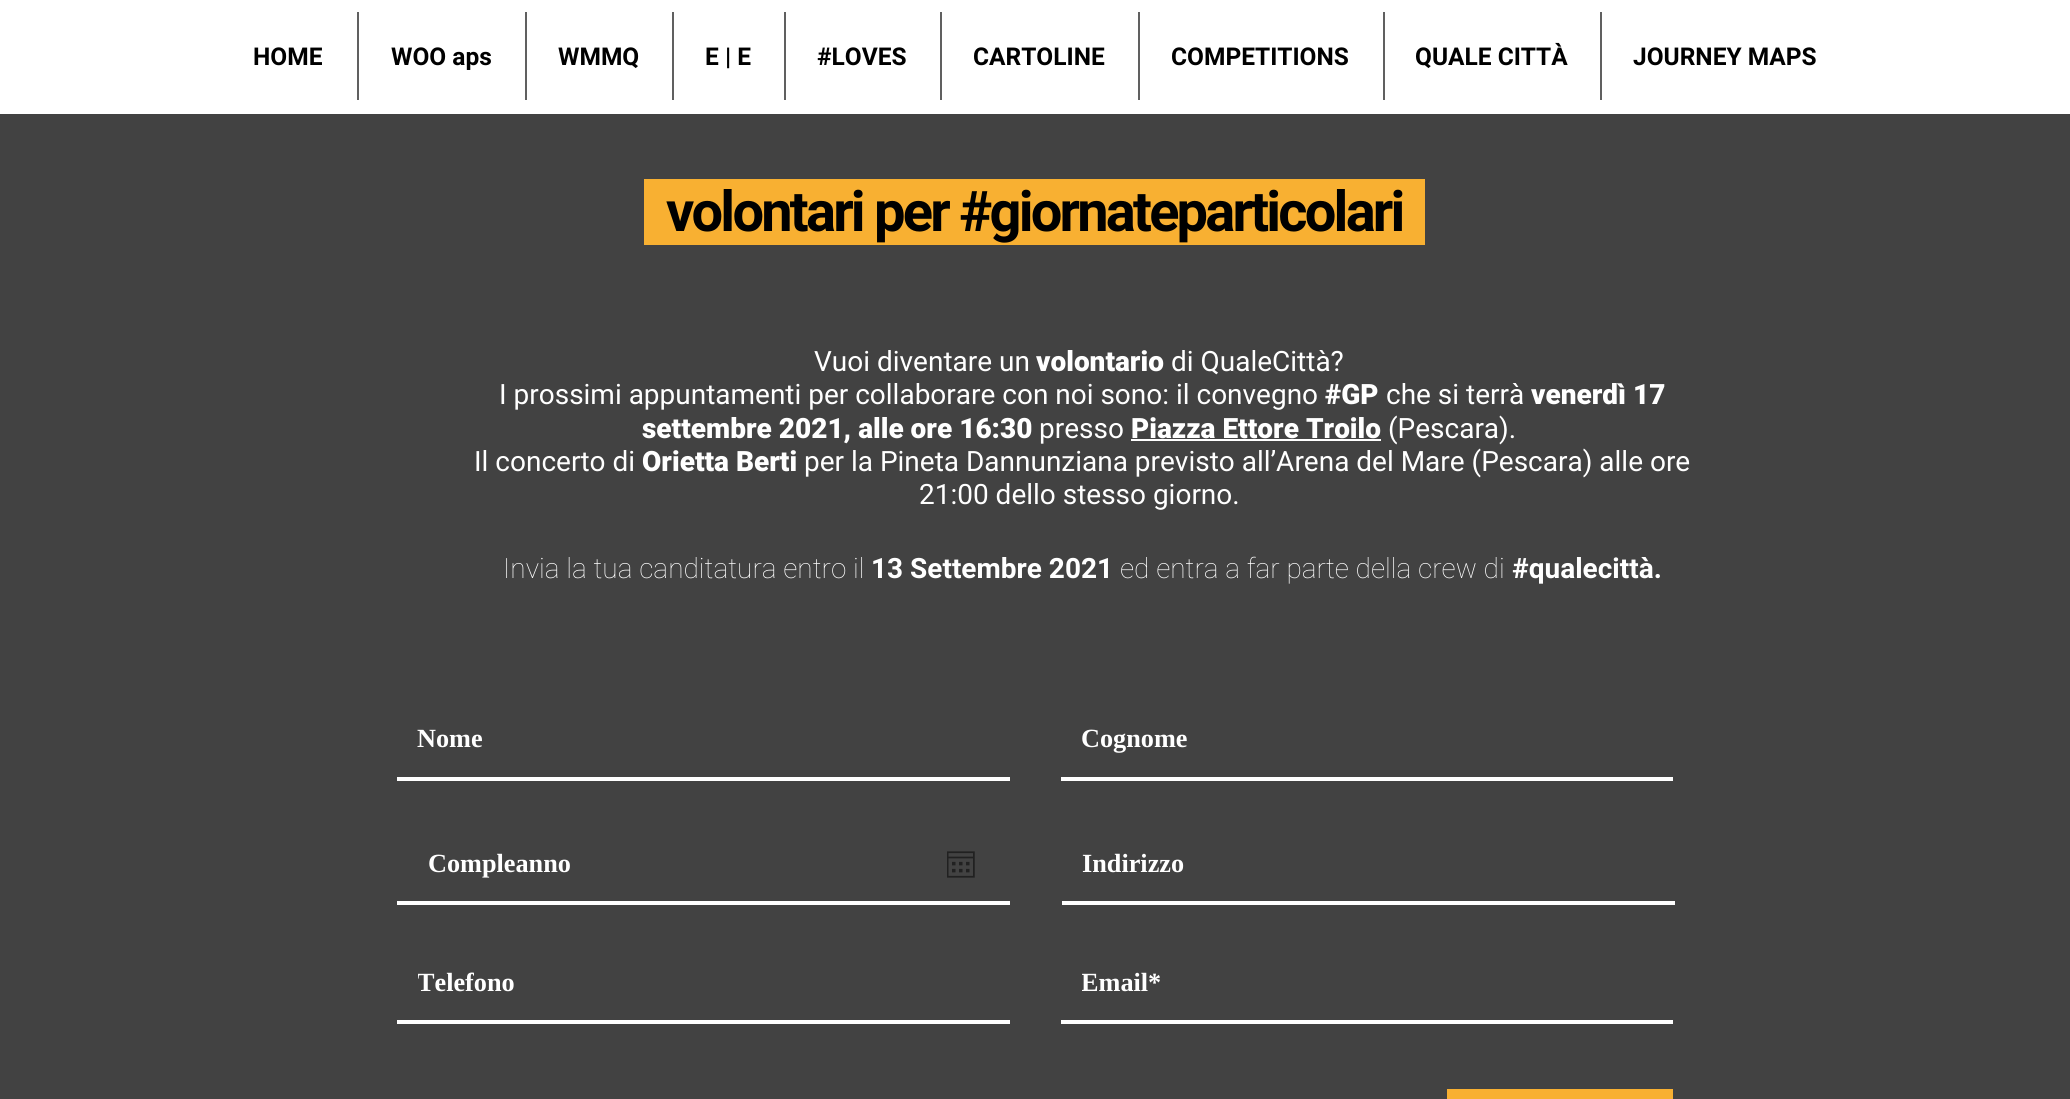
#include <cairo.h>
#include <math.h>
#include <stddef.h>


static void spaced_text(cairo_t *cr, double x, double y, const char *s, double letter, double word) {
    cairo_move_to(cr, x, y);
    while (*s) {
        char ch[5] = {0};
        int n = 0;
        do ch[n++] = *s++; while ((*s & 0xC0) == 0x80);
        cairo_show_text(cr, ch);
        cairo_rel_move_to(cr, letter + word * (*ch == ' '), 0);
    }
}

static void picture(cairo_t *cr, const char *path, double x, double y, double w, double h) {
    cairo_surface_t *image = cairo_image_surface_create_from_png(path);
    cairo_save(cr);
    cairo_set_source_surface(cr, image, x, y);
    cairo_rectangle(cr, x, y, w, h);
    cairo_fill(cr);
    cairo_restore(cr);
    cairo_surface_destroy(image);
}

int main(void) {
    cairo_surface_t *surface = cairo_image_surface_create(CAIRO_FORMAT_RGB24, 2070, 1099);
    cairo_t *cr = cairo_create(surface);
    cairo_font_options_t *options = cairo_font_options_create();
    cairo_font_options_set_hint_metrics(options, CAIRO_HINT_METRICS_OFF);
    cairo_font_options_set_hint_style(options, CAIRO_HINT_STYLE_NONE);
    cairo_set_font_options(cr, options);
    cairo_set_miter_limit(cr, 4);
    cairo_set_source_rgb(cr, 0.259, 0.259, 0.259);
    cairo_paint(cr);
    cairo_set_source_rgb(cr, 1, 1, 1);
    cairo_rectangle(cr, 0, 0, 2070, 114);
    cairo_fill(cr);
    cairo_select_font_face(cr, "Roboto", CAIRO_FONT_SLANT_NORMAL, CAIRO_FONT_WEIGHT_BOLD);
    cairo_set_font_size(cr, 24.5);
    cairo_set_source_rgb(cr, 0, 0, 0);
    cairo_move_to(cr, 253, 65);
    cairo_show_text(cr, "HOME");
    cairo_set_source_rgb(cr, 0.376, 0.376, 0.376);
    cairo_rectangle(cr, 357, 12, 2, 88);
    cairo_fill(cr);
    cairo_set_source_rgb(cr, 0, 0, 0);
    cairo_move_to(cr, 391, 65);
    cairo_show_text(cr, "WOO aps");
    cairo_set_source_rgb(cr, 0.376, 0.376, 0.376);
    cairo_rectangle(cr, 525, 12, 2, 88);
    cairo_fill(cr);
    cairo_set_source_rgb(cr, 0, 0, 0);
    cairo_move_to(cr, 558, 65);
    cairo_show_text(cr, "WMMQ");
    cairo_set_source_rgb(cr, 0.376, 0.376, 0.376);
    cairo_rectangle(cr, 672, 12, 2, 88);
    cairo_fill(cr);
    cairo_set_source_rgb(cr, 0, 0, 0);
    cairo_move_to(cr, 705, 65);
    cairo_show_text(cr, "E | E");
    cairo_set_source_rgb(cr, 0.376, 0.376, 0.376);
    cairo_rectangle(cr, 784, 12, 2, 88);
    cairo_fill(cr);
    cairo_set_source_rgb(cr, 0, 0, 0);
    cairo_move_to(cr, 817, 65);
    cairo_show_text(cr, "#LOVES");
    cairo_set_source_rgb(cr, 0.376, 0.376, 0.376);
    cairo_rectangle(cr, 940, 12, 2, 88);
    cairo_fill(cr);
    cairo_set_source_rgb(cr, 0, 0, 0);
    cairo_move_to(cr, 973, 65);
    cairo_show_text(cr, "CARTOLINE");
    cairo_set_source_rgb(cr, 0.376, 0.376, 0.376);
    cairo_rectangle(cr, 1138, 12, 2, 88);
    cairo_fill(cr);
    cairo_set_source_rgb(cr, 0, 0, 0);
    cairo_move_to(cr, 1171, 65);
    cairo_show_text(cr, "COMPETITIONS");
    cairo_set_source_rgb(cr, 0.376, 0.376, 0.376);
    cairo_rectangle(cr, 1383, 12, 2, 88);
    cairo_fill(cr);
    cairo_set_source_rgb(cr, 0, 0, 0);
    cairo_move_to(cr, 1415, 65);
    cairo_show_text(cr, "QUALE CITTÀ");
    cairo_set_source_rgb(cr, 0.376, 0.376, 0.376);
    cairo_rectangle(cr, 1600, 12, 2, 88);
    cairo_fill(cr);
    cairo_set_source_rgb(cr, 0, 0, 0);
    cairo_move_to(cr, 1633, 65);
    cairo_show_text(cr, "JOURNEY MAPS");
    cairo_set_source_rgb(cr, 0.969, 0.69, 0.196);
    cairo_rectangle(cr, 644, 179, 781, 66);
    cairo_fill(cr);
    cairo_set_font_size(cr, 56);
    cairo_set_source_rgb(cr, 0, 0, 0);
    spaced_text(cr, 666, 231, "volontari per #giornateparticolari", -2.8, 0);
    cairo_select_font_face(cr, "Roboto", CAIRO_FONT_SLANT_NORMAL, CAIRO_FONT_WEIGHT_NORMAL);
    cairo_set_font_size(cr, 28);
    cairo_set_source_rgb(cr, 1, 1, 1);
    cairo_move_to(cr, 814, 371);
    cairo_show_text(cr, "Vuoi diventare un");
    cairo_select_font_face(cr, "Roboto Black", CAIRO_FONT_SLANT_NORMAL, CAIRO_FONT_WEIGHT_NORMAL);
    cairo_move_to(cr, 1036, 371);
    cairo_show_text(cr, "volontario");
    cairo_select_font_face(cr, "Roboto", CAIRO_FONT_SLANT_NORMAL, CAIRO_FONT_WEIGHT_NORMAL);
    cairo_move_to(cr, 1171, 371);
    cairo_show_text(cr, "di QualeCittà?");
    cairo_move_to(cr, 499, 404);
    cairo_show_text(cr, "I prossimi appuntamenti per collaborare con noi sono: il convegno");
    cairo_select_font_face(cr, "Roboto Black", CAIRO_FONT_SLANT_NORMAL, CAIRO_FONT_WEIGHT_NORMAL);
    cairo_move_to(cr, 1325, 404);
    cairo_show_text(cr, "#GP");
    cairo_select_font_face(cr, "Roboto", CAIRO_FONT_SLANT_NORMAL, CAIRO_FONT_WEIGHT_NORMAL);
    cairo_move_to(cr, 1386, 404);
    cairo_show_text(cr, "che si terrà");
    cairo_select_font_face(cr, "Roboto Black", CAIRO_FONT_SLANT_NORMAL, CAIRO_FONT_WEIGHT_NORMAL);
    cairo_move_to(cr, 1531, 404);
    cairo_show_text(cr, "venerdì 17");
    cairo_move_to(cr, 642, 438);
    cairo_show_text(cr, "settembre 2021, alle ore 16:30");
    cairo_select_font_face(cr, "Roboto", CAIRO_FONT_SLANT_NORMAL, CAIRO_FONT_WEIGHT_NORMAL);
    cairo_move_to(cr, 1039, 438);
    cairo_show_text(cr, "presso");
    cairo_rectangle(cr, 1131, 439, 250, 2);
    cairo_fill(cr);
    cairo_select_font_face(cr, "Roboto Black", CAIRO_FONT_SLANT_NORMAL, CAIRO_FONT_WEIGHT_NORMAL);
    cairo_move_to(cr, 1131, 438);
    cairo_show_text(cr, "Piazza Ettore Troilo");
    cairo_select_font_face(cr, "Roboto", CAIRO_FONT_SLANT_NORMAL, CAIRO_FONT_WEIGHT_NORMAL);
    cairo_move_to(cr, 1388, 438);
    cairo_show_text(cr, "(Pescara).");
    cairo_move_to(cr, 474, 471);
    cairo_show_text(cr, "Il concerto di");
    cairo_select_font_face(cr, "Roboto Black", CAIRO_FONT_SLANT_NORMAL, CAIRO_FONT_WEIGHT_NORMAL);
    cairo_move_to(cr, 642, 471);
    cairo_show_text(cr, "Orietta Berti");
    cairo_select_font_face(cr, "Roboto", CAIRO_FONT_SLANT_NORMAL, CAIRO_FONT_WEIGHT_NORMAL);
    cairo_move_to(cr, 804, 471);
    cairo_show_text(cr, "per la Pineta Dannunziana previsto all’Arena del Mare (Pescara) alle ore");
    cairo_move_to(cr, 919, 504);
    cairo_show_text(cr, "21:00 dello stesso giorno.");
    cairo_select_font_face(cr, "Roboto Thin", CAIRO_FONT_SLANT_NORMAL, CAIRO_FONT_WEIGHT_NORMAL);
    cairo_move_to(cr, 503, 578);
    cairo_show_text(cr, "Invia la tua canditatura entro il");
    cairo_select_font_face(cr, "Roboto", CAIRO_FONT_SLANT_NORMAL, CAIRO_FONT_WEIGHT_BOLD);
    cairo_move_to(cr, 871, 578);
    cairo_show_text(cr, "13 Settembre 2021");
    cairo_select_font_face(cr, "Roboto Thin", CAIRO_FONT_SLANT_NORMAL, CAIRO_FONT_WEIGHT_NORMAL);
    cairo_move_to(cr, 1120, 578);
    cairo_show_text(cr, "ed entra a far parte della crew di");
    cairo_select_font_face(cr, "Roboto", CAIRO_FONT_SLANT_NORMAL, CAIRO_FONT_WEIGHT_BOLD);
    cairo_move_to(cr, 1512, 578);
    cairo_show_text(cr, "#qualecittà.");
    cairo_rectangle(cr, 397, 777, 613, 4);
    cairo_fill(cr);
    cairo_select_font_face(cr, "Liberation Serif", CAIRO_FONT_SLANT_NORMAL, CAIRO_FONT_WEIGHT_BOLD);
    cairo_set_font_size(cr, 26.25);
    cairo_move_to(cr, 417, 747);
    cairo_show_text(cr, "Nome");
    cairo_rectangle(cr, 1061, 777, 612, 4);
    cairo_fill(cr);
    cairo_move_to(cr, 1081, 747);
    cairo_show_text(cr, "Cognome");
    cairo_rectangle(cr, 397, 901, 613, 4);
    cairo_fill(cr);
    cairo_move_to(cr, 428, 872);
    cairo_show_text(cr, "Compleanno");
    picture(cr, "img1.png", 947, 851, 28, 27);
    cairo_rectangle(cr, 1062, 901, 613, 4);
    cairo_fill(cr);
    cairo_move_to(cr, 1082, 872);
    cairo_show_text(cr, "Indirizzo");
    cairo_rectangle(cr, 397, 1020, 613, 4);
    cairo_fill(cr);
    cairo_save(cr);
    cairo_rectangle(cr, 418, 968, 587, 30);
    cairo_clip(cr);
    cairo_move_to(cr, 417, 991);
    cairo_show_text(cr, "Telefono");
    cairo_restore(cr);
    cairo_rectangle(cr, 1061, 1020, 612, 4);
    cairo_fill(cr);
    cairo_save(cr);
    cairo_rectangle(cr, 1082, 968, 586, 30);
    cairo_clip(cr);
    cairo_move_to(cr, 1081, 991);
    cairo_show_text(cr, "Email*");
    cairo_restore(cr);
    cairo_set_source_rgb(cr, 0.969, 0.69, 0.196);
    cairo_rectangle(cr, 1447, 1089, 226, 10);
    cairo_fill(cr);
    cairo_surface_write_to_png(surface, "page.png");
    cairo_font_options_destroy(options);
    cairo_destroy(cr);
    cairo_surface_destroy(surface);
    return 0;
}
